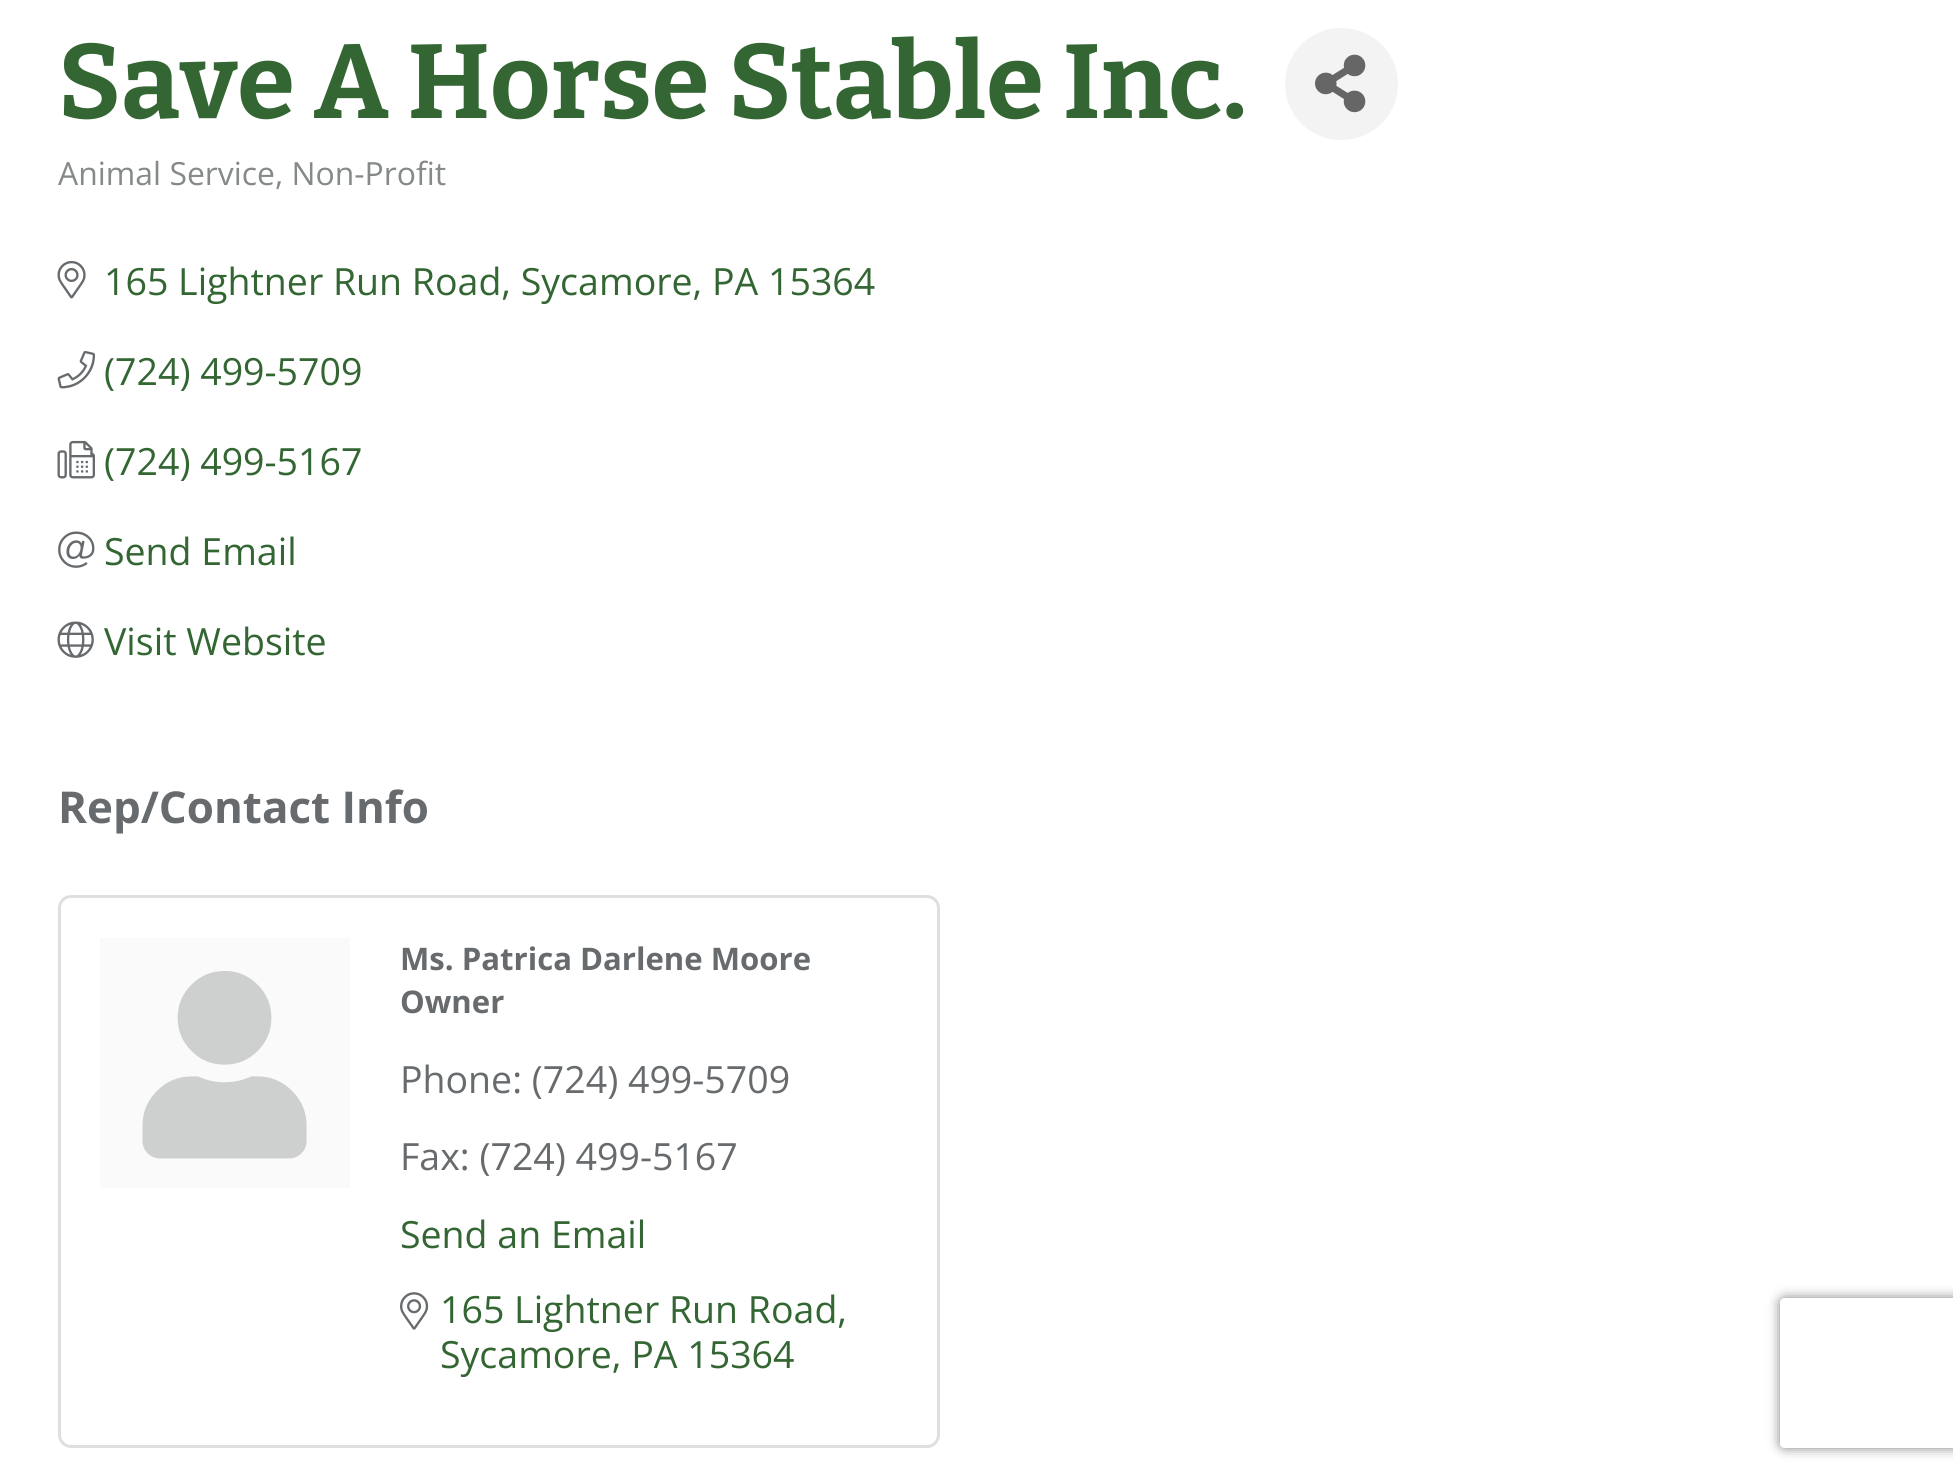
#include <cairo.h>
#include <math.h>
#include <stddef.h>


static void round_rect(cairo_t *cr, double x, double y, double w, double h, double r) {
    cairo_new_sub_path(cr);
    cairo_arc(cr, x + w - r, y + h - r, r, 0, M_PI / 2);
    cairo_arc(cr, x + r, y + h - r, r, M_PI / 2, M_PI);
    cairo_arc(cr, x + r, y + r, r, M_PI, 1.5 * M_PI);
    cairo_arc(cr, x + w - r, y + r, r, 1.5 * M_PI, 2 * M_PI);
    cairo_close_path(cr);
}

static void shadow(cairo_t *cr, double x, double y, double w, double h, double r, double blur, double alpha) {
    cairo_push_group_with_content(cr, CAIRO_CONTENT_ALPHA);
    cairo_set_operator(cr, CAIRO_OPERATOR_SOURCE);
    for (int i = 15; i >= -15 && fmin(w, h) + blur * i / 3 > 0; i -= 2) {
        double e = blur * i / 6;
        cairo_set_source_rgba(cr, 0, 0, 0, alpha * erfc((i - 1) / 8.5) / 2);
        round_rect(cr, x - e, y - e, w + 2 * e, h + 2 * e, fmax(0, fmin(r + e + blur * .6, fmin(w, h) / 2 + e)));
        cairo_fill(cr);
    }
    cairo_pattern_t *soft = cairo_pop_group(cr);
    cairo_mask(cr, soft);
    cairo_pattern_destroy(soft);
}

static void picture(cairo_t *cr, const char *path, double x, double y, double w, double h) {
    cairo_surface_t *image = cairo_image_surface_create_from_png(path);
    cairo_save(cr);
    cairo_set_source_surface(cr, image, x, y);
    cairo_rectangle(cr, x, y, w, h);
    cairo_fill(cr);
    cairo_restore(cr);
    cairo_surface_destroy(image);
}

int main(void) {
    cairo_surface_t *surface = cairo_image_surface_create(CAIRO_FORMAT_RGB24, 1953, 1482);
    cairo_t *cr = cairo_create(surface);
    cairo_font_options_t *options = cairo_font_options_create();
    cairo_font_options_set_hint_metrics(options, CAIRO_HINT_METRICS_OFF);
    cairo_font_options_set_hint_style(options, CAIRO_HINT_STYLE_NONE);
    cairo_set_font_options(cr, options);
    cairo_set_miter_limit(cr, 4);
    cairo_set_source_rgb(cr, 1, 1, 1);
    cairo_paint(cr);
    cairo_select_font_face(cr, "Bitter", CAIRO_FONT_SLANT_NORMAL, CAIRO_FONT_WEIGHT_BOLD);
    cairo_set_font_size(cr, 105);
    cairo_set_source_rgb(cr, 0.2, 0.4, 0.2);
    cairo_move_to(cr, 58, 118);
    cairo_show_text(cr, "Save A Horse Stable Inc.");
    cairo_set_source_rgb(cr, 0.953, 0.953, 0.953);
    round_rect(cr, 1285, 28, 113, 112, 56);
    cairo_fill(cr);
    picture(cr, "img1.png", 1315, 54, 51, 59);
    cairo_select_font_face(cr, "Open Sans", CAIRO_FONT_SLANT_NORMAL, CAIRO_FONT_WEIGHT_NORMAL);
    cairo_set_font_size(cr, 31.9);
    cairo_set_source_rgb(cr, 0.522, 0.537, 0.541);
    cairo_move_to(cr, 58, 185);
    cairo_show_text(cr, "Animal Service, Non-Profit");
    picture(cr, "img2.png", 57, 260, 29, 39);
    cairo_set_font_size(cr, 37.5);
    cairo_set_source_rgb(cr, 0.2, 0.4, 0.2);
    cairo_move_to(cr, 104, 295);
    cairo_show_text(cr, "165 Lightner Run Road, Sycamore, PA 15364");
    picture(cr, "img3.png", 57, 350, 39, 39);
    cairo_move_to(cr, 104, 385);
    cairo_show_text(cr, "(724) 499-5709");
    picture(cr, "img4.png", 57, 440, 38, 39);
    cairo_move_to(cr, 104, 475);
    cairo_show_text(cr, "(724) 499-5167");
    picture(cr, "img5.png", 58, 531, 37, 37);
    cairo_move_to(cr, 104, 565);
    cairo_show_text(cr, "Send Email");
    picture(cr, "img6.png", 57, 621, 37, 37);
    cairo_move_to(cr, 104, 655);
    cairo_show_text(cr, "Visit Website");
    cairo_select_font_face(cr, "Open Sans", CAIRO_FONT_SLANT_NORMAL, CAIRO_FONT_WEIGHT_BOLD);
    cairo_set_font_size(cr, 43.9);
    cairo_set_source_rgb(cr, 0.404, 0.42, 0.427);
    cairo_move_to(cr, 58, 823);
    cairo_show_text(cr, "Rep/Contact Info");
    round_rect(cr, 59.5, 896.5, 879, 550, 11.5);
    cairo_set_source_rgb(cr, 0.875, 0.875, 0.875);
    cairo_set_line_width(cr, 3);
    cairo_stroke(cr);
    cairo_set_source_rgb(cr, 0.98, 0.98, 0.98);
    cairo_rectangle(cr, 100, 938, 250, 250);
    cairo_fill(cr);
    picture(cr, "img7.png", 142, 971, 165, 188);
    cairo_set_font_size(cr, 31.1);
    cairo_set_source_rgb(cr, 0.404, 0.42, 0.427);
    cairo_move_to(cr, 400, 970);
    cairo_show_text(cr, "Ms. Patrica Darlene Moore");
    cairo_move_to(cr, 400, 1013);
    cairo_show_text(cr, "Owner");
    cairo_select_font_face(cr, "Open Sans", CAIRO_FONT_SLANT_NORMAL, CAIRO_FONT_WEIGHT_NORMAL);
    cairo_set_font_size(cr, 37.5);
    cairo_move_to(cr, 400, 1093);
    cairo_show_text(cr, "Phone: (724) 499-5709");
    cairo_move_to(cr, 400, 1170);
    cairo_show_text(cr, "Fax: (724) 499-5167");
    cairo_set_source_rgb(cr, 0.2, 0.4, 0.2);
    cairo_move_to(cr, 400, 1248);
    cairo_show_text(cr, "Send an Email");
    picture(cr, "img8.png", 400, 1292, 29, 38);
    cairo_move_to(cr, 440, 1323);
    cairo_show_text(cr, "165 Lightner Run Road,");
    cairo_move_to(cr, 440, 1368);
    cairo_show_text(cr, "Sycamore, PA 15364");
    cairo_save(cr);
    cairo_set_fill_rule(cr, CAIRO_FILL_RULE_EVEN_ODD);
    cairo_new_path(cr);
    cairo_move_to(cr, 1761, 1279);
    cairo_line_to(cr, 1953, 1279);
    cairo_line_to(cr, 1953, 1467);
    cairo_line_to(cr, 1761, 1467);
    cairo_close_path(cr);
    cairo_move_to(cr, 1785, 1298);
    cairo_line_to(cr, 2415, 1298);
    cairo_curve_to(cr, 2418, 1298, 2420, 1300, 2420, 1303);
    cairo_line_to(cr, 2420, 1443);
    cairo_curve_to(cr, 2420, 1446, 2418, 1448, 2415, 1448);
    cairo_line_to(cr, 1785, 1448);
    cairo_curve_to(cr, 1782, 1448, 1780, 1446, 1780, 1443);
    cairo_line_to(cr, 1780, 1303);
    cairo_curve_to(cr, 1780, 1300, 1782, 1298, 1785, 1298);
    cairo_close_path(cr);
    cairo_clip(cr);
    cairo_set_source_rgb(cr, 0.502, 0.502, 0.502);
    shadow(cr, 1780, 1298, 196, 150, 5, 6, 1);
    cairo_restore(cr);
    cairo_surface_write_to_png(surface, "page.png");
    cairo_font_options_destroy(options);
    cairo_destroy(cr);
    cairo_surface_destroy(surface);
    return 0;
}
